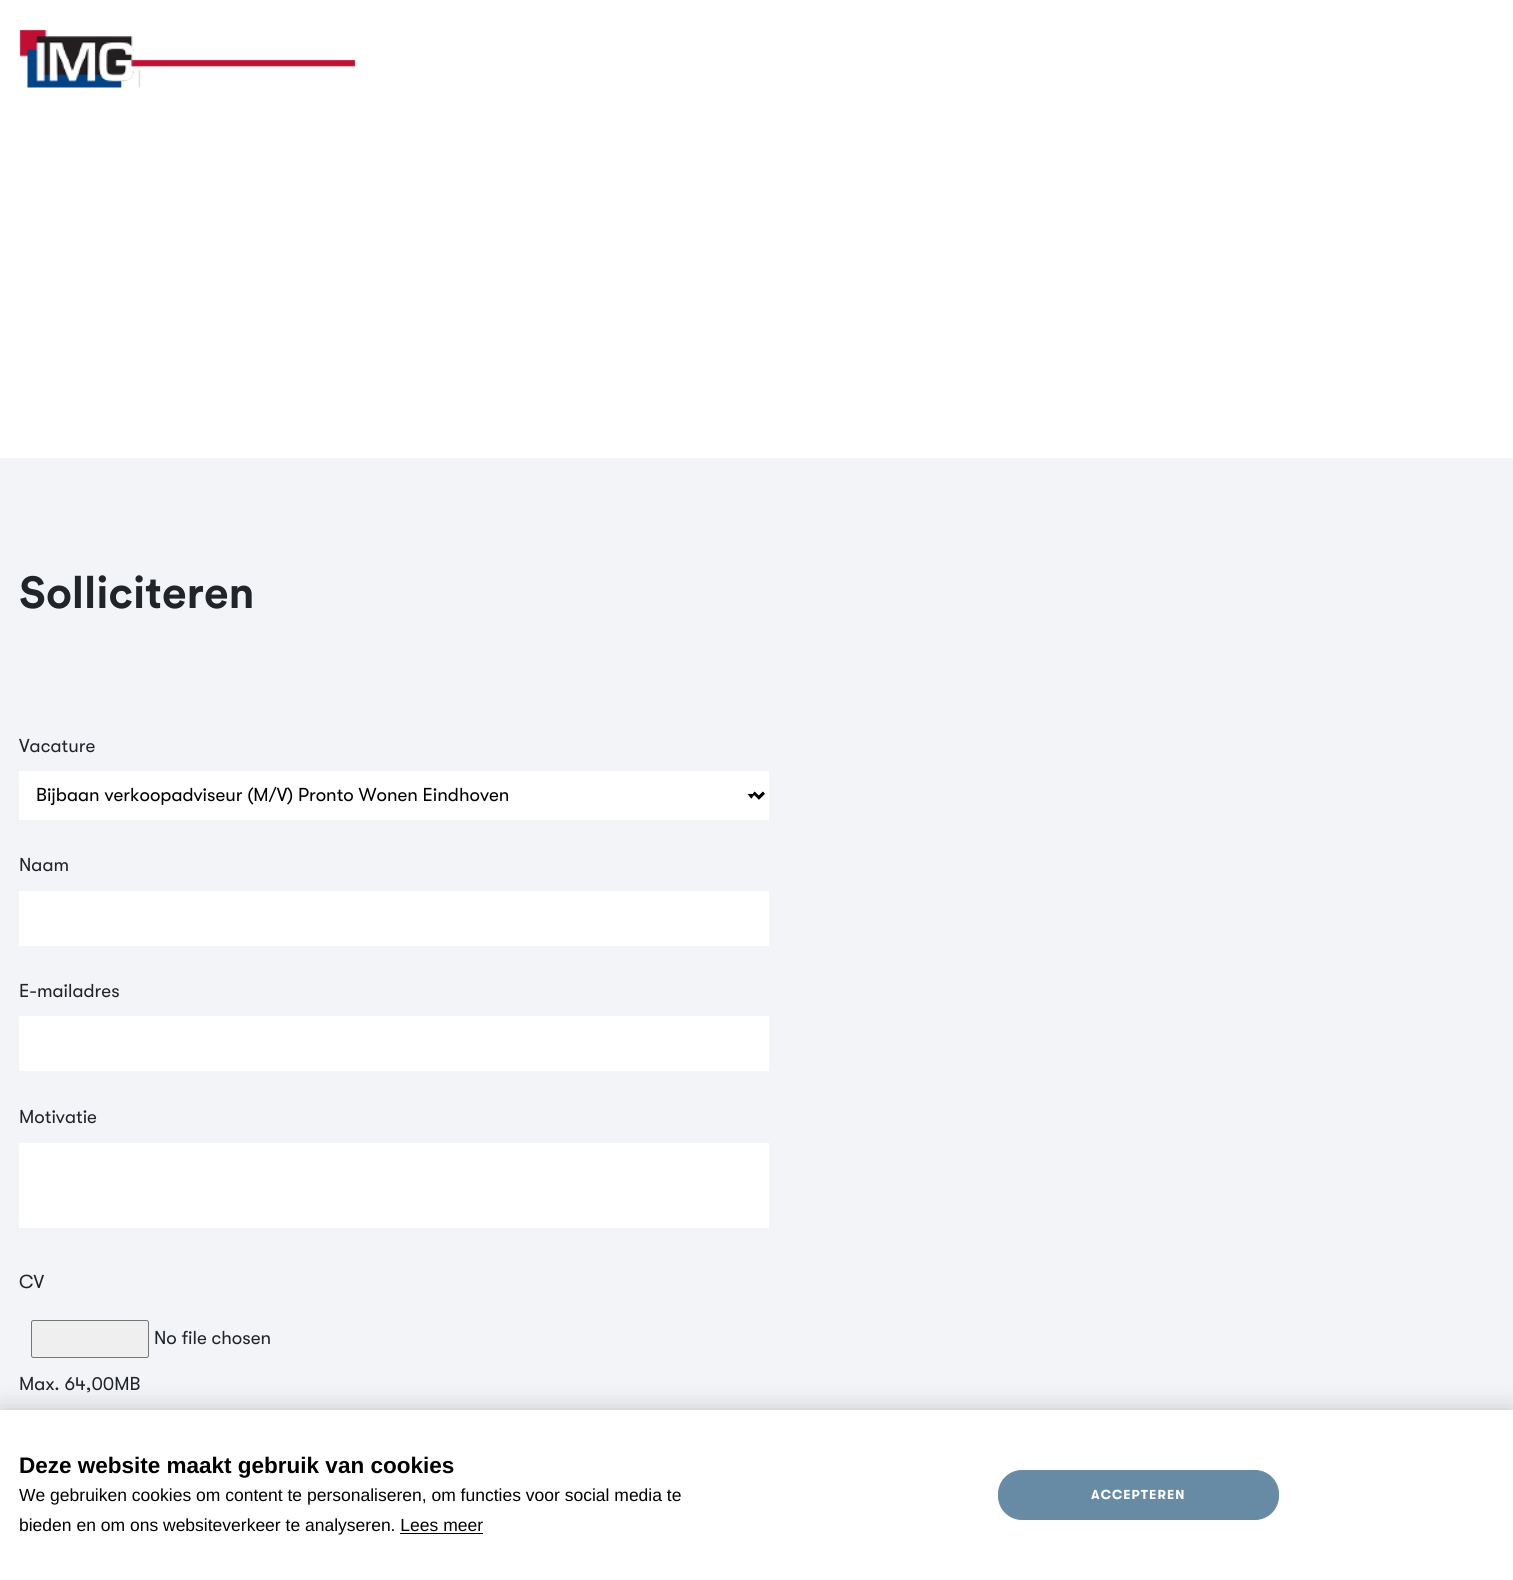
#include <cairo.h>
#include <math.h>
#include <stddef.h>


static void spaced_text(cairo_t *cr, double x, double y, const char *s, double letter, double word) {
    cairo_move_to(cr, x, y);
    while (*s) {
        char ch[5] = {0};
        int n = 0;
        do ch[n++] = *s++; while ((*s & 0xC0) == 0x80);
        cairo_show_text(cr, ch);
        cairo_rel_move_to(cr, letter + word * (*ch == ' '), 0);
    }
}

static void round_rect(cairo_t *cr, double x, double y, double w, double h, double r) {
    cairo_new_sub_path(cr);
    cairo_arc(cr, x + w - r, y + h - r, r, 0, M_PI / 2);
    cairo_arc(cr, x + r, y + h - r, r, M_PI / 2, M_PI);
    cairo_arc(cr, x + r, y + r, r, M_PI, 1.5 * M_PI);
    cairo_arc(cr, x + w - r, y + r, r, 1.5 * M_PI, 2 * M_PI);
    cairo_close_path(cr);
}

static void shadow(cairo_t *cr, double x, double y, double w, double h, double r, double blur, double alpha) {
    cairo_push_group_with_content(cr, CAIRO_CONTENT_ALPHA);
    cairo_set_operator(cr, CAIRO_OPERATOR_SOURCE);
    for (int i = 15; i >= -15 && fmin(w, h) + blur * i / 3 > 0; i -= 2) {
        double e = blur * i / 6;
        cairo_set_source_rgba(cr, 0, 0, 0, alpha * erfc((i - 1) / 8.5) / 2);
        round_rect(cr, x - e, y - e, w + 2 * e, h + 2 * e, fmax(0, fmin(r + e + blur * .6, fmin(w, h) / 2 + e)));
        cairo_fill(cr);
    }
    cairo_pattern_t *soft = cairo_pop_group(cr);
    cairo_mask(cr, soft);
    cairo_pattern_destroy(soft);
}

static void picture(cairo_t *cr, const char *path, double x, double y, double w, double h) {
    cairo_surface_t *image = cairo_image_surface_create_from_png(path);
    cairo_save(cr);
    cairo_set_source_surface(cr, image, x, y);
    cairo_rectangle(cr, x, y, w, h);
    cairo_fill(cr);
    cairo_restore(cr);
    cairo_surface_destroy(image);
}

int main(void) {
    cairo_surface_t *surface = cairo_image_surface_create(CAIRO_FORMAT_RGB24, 1513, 1580);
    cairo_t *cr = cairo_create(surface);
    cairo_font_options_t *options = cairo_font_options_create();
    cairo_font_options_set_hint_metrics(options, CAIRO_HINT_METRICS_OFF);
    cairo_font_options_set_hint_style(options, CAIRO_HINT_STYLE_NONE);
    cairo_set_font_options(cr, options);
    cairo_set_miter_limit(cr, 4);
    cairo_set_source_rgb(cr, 1, 1, 1);
    cairo_paint(cr);
    picture(cr, "img1.png", 19, 29, 337, 59);
    cairo_set_source_rgb(cr, 0.953, 0.957, 0.969);
    cairo_rectangle(cr, 0, 458, 1513, 952);
    cairo_fill(cr);
    cairo_select_font_face(cr, "Circular", CAIRO_FONT_SLANT_NORMAL, CAIRO_FONT_WEIGHT_BOLD);
    cairo_set_font_size(cr, 44.5);
    cairo_set_source_rgb(cr, 0.129, 0.145, 0.161);
    cairo_move_to(cr, 19, 608);
    cairo_show_text(cr, "Solliciteren");
    cairo_select_font_face(cr, "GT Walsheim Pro", CAIRO_FONT_SLANT_NORMAL, CAIRO_FONT_WEIGHT_NORMAL);
    cairo_set_font_size(cr, 18.75);
    cairo_move_to(cr, 19, 752);
    cairo_show_text(cr, "Vacature");
    cairo_set_source_rgb(cr, 1, 1, 1);
    cairo_rectangle(cr, 19, 771, 750, 49);
    cairo_fill(cr);
    picture(cr, "img2.png", 747, 791, 18, 9);
    cairo_new_path(cr);
    cairo_move_to(cr, 754, 793);
    cairo_line_to(cr, 759, 798);
    cairo_line_to(cr, 764, 793);
    cairo_set_source_rgb(cr, 0, 0, 0);
    cairo_set_line_width(cr, 2.5);
    cairo_stroke(cr);
    cairo_move_to(cr, 36, 801);
    cairo_show_text(cr, "Bijbaan verkoopadviseur (M/V) Pronto Wonen Eindhoven");
    cairo_set_source_rgb(cr, 0.129, 0.145, 0.161);
    cairo_move_to(cr, 19, 871);
    cairo_show_text(cr, "Naam");
    cairo_set_source_rgb(cr, 1, 1, 1);
    cairo_rectangle(cr, 19, 891, 750, 55);
    cairo_fill(cr);
    cairo_set_source_rgb(cr, 0.129, 0.145, 0.161);
    cairo_move_to(cr, 19, 997);
    cairo_show_text(cr, "E-mailadres");
    cairo_set_source_rgb(cr, 1, 1, 1);
    cairo_rectangle(cr, 19, 1016, 750, 55);
    cairo_fill(cr);
    cairo_set_source_rgb(cr, 0.129, 0.145, 0.161);
    cairo_move_to(cr, 19, 1123);
    cairo_show_text(cr, "Motivatie");
    cairo_set_source_rgb(cr, 1, 1, 1);
    cairo_rectangle(cr, 19, 1143, 750, 85);
    cairo_fill(cr);
    cairo_set_source_rgb(cr, 0.129, 0.145, 0.161);
    cairo_move_to(cr, 19, 1288);
    cairo_show_text(cr, "CV");
    cairo_set_source_rgb(cr, 0.937, 0.937, 0.937);
    round_rect(cr, 31.5, 1320.5, 117, 37, 2);
    cairo_fill_preserve(cr);
    cairo_set_source_rgb(cr, 0.463, 0.463, 0.463);
    cairo_set_line_width(cr, 1);
    cairo_stroke(cr);
    cairo_set_source_rgb(cr, 0.129, 0.145, 0.161);
    cairo_move_to(cr, 154, 1344);
    cairo_show_text(cr, "No file chosen");
    cairo_move_to(cr, 19, 1390);
    cairo_show_text(cr, "Max. 64,00MB");
    cairo_set_source_rgb(cr, 0, 0, 0);
    shadow(cr, 0, 1410, 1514, 170, 0, 12.5, 0.2);
    cairo_set_source_rgb(cr, 1, 1, 1);
    cairo_rectangle(cr, 0, 1410, 1513, 170);
    cairo_fill(cr);
    cairo_select_font_face(cr, "Liberation Sans", CAIRO_FONT_SLANT_NORMAL, CAIRO_FONT_WEIGHT_BOLD);
    cairo_set_font_size(cr, 22.5);
    cairo_set_source_rgb(cr, 0, 0, 0);
    cairo_move_to(cr, 19, 1473);
    cairo_show_text(cr, "Deze website maakt gebruik van cookies");
    cairo_select_font_face(cr, "Liberation Sans", CAIRO_FONT_SLANT_NORMAL, CAIRO_FONT_WEIGHT_NORMAL);
    cairo_set_font_size(cr, 17.5);
    cairo_move_to(cr, 19, 1501);
    cairo_show_text(cr, "We gebruiken cookies om content te personaliseren, om functies voor social media te");
    cairo_move_to(cr, 19, 1531);
    cairo_show_text(cr, "bieden en om ons websiteverkeer te analyseren. Lees meer");
    cairo_rectangle(cr, 400, 1533, 83, 1);
    cairo_fill(cr);
    cairo_set_source_rgb(cr, 0.404, 0.545, 0.647);
    round_rect(cr, 998.5, 1470.5, 280, 49, 23.5);
    cairo_fill_preserve(cr);
    cairo_stroke(cr);
    cairo_select_font_face(cr, "GT Walsheim Pro", CAIRO_FONT_SLANT_NORMAL, CAIRO_FONT_WEIGHT_BOLD);
    cairo_set_font_size(cr, 13);
    cairo_set_source_rgb(cr, 1, 1, 1);
    spaced_text(cr, 1091, 1499, "ACCEPTEREN", 1.1, 0);
    cairo_surface_write_to_png(surface, "page.png");
    cairo_font_options_destroy(options);
    cairo_destroy(cr);
    cairo_surface_destroy(surface);
    return 0;
}
